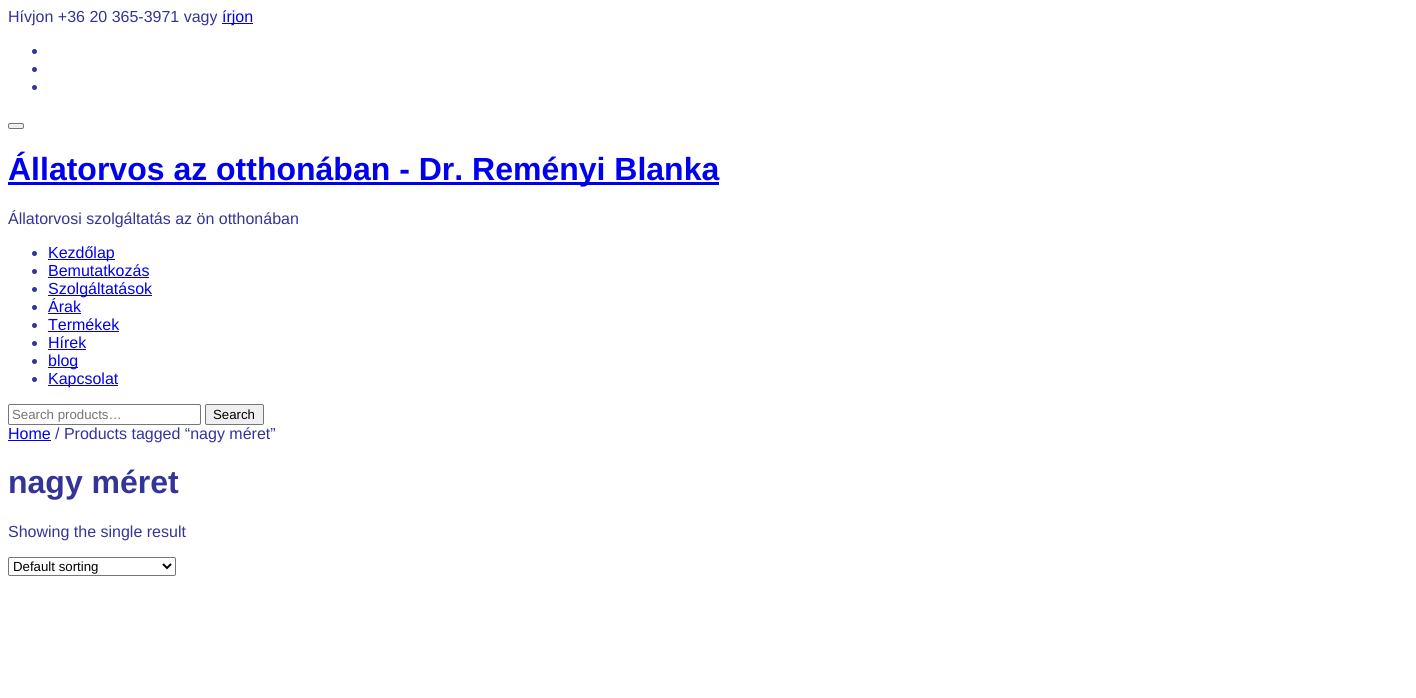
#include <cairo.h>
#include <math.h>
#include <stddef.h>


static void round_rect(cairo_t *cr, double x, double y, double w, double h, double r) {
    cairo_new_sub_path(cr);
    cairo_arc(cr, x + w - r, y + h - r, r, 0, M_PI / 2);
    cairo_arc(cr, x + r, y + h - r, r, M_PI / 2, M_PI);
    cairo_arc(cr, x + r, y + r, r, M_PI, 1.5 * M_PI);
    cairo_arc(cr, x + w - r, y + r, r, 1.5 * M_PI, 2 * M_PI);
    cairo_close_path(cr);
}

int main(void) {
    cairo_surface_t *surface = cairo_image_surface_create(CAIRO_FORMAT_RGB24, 1416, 698);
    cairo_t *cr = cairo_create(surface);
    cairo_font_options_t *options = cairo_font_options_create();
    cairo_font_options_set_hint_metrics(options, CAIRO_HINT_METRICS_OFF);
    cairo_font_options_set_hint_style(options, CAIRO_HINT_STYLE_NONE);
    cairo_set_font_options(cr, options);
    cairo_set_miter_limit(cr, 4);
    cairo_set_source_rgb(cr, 1, 1, 1);
    cairo_paint(cr);
    cairo_select_font_face(cr, "Liberation Sans", CAIRO_FONT_SLANT_NORMAL, CAIRO_FONT_WEIGHT_NORMAL);
    cairo_set_font_size(cr, 16);
    cairo_set_source_rgb(cr, 0.2, 0.2, 0.6);
    cairo_move_to(cr, 8, 22);
    cairo_show_text(cr, "Hívjon +36 20 365-3971 vagy");
    cairo_set_source_rgb(cr, 0, 0, 0.933);
    cairo_rectangle(cr, 222, 23, 31, 1);
    cairo_fill(cr);
    cairo_move_to(cr, 222, 22);
    cairo_show_text(cr, "írjon");
    cairo_set_source_rgb(cr, 0.2, 0.2, 0.6);
    cairo_new_path(cr);
    cairo_arc(cr, 34.5, 51.5, 2.5, 0, 2 * M_PI);
    cairo_fill(cr);
    cairo_arc(cr, 34.5, 69.5, 2.5, 0, 2 * M_PI);
    cairo_fill(cr);
    cairo_arc(cr, 34.5, 87.5, 2.5, 0, 2 * M_PI);
    cairo_fill(cr);
    cairo_set_source_rgb(cr, 0.937, 0.937, 0.937);
    round_rect(cr, 8.5, 123.5, 15, 5, 1.5);
    cairo_fill_preserve(cr);
    cairo_set_source_rgb(cr, 0.463, 0.463, 0.463);
    cairo_set_line_width(cr, 1);
    cairo_stroke(cr);
    cairo_set_source_rgb(cr, 0, 0, 0.933);
    cairo_rectangle(cr, 8, 182, 711, 3);
    cairo_fill(cr);
    cairo_select_font_face(cr, "Liberation Sans", CAIRO_FONT_SLANT_NORMAL, CAIRO_FONT_WEIGHT_BOLD);
    cairo_set_font_size(cr, 32);
    cairo_move_to(cr, 8, 180);
    cairo_show_text(cr, "Állatorvos az otthonában - Dr. Reményi Blanka");
    cairo_select_font_face(cr, "Liberation Sans", CAIRO_FONT_SLANT_NORMAL, CAIRO_FONT_WEIGHT_NORMAL);
    cairo_set_font_size(cr, 16);
    cairo_set_source_rgb(cr, 0.2, 0.2, 0.6);
    cairo_move_to(cr, 8, 224);
    cairo_show_text(cr, "Állatorvosi szolgáltatás az ön otthonában");
    cairo_new_path(cr);
    cairo_arc(cr, 34.5, 253.5, 2.5, 0, 2 * M_PI);
    cairo_fill(cr);
    cairo_set_source_rgb(cr, 0, 0, 0.933);
    cairo_rectangle(cr, 48, 259, 67, 1);
    cairo_fill(cr);
    cairo_move_to(cr, 48, 258);
    cairo_show_text(cr, "Kezdőlap");
    cairo_set_source_rgb(cr, 0.2, 0.2, 0.6);
    cairo_new_path(cr);
    cairo_arc(cr, 34.5, 271.5, 2.5, 0, 2 * M_PI);
    cairo_fill(cr);
    cairo_set_source_rgb(cr, 0, 0, 0.933);
    cairo_move_to(cr, 48, 276);
    cairo_show_text(cr, "Bemutatkozás");
    cairo_rectangle(cr, 48, 277, 101, 1);
    cairo_fill(cr);
    cairo_set_source_rgb(cr, 0.2, 0.2, 0.6);
    cairo_arc(cr, 34.5, 289.5, 2.5, 0, 2 * M_PI);
    cairo_fill(cr);
    cairo_set_source_rgb(cr, 0, 0, 0.933);
    cairo_rectangle(cr, 48, 295, 104, 1);
    cairo_fill(cr);
    cairo_move_to(cr, 48, 294);
    cairo_show_text(cr, "Szolgáltatások");
    cairo_set_source_rgb(cr, 0.2, 0.2, 0.6);
    cairo_new_path(cr);
    cairo_arc(cr, 34.5, 307.5, 2.5, 0, 2 * M_PI);
    cairo_fill(cr);
    cairo_set_source_rgb(cr, 0, 0, 0.933);
    cairo_move_to(cr, 48, 312);
    cairo_show_text(cr, "Árak");
    cairo_rectangle(cr, 48, 313, 33, 1);
    cairo_fill(cr);
    cairo_set_source_rgb(cr, 0.2, 0.2, 0.6);
    cairo_arc(cr, 34.5, 325.5, 2.5, 0, 2 * M_PI);
    cairo_fill(cr);
    cairo_set_source_rgb(cr, 0, 0, 0.933);
    cairo_move_to(cr, 48, 330);
    cairo_show_text(cr, "Termékek");
    cairo_rectangle(cr, 48, 331, 71, 1);
    cairo_fill(cr);
    cairo_set_source_rgb(cr, 0.2, 0.2, 0.6);
    cairo_arc(cr, 34.5, 343.5, 2.5, 0, 2 * M_PI);
    cairo_fill(cr);
    cairo_set_source_rgb(cr, 0, 0, 0.933);
    cairo_move_to(cr, 48, 348);
    cairo_show_text(cr, "Hírek");
    cairo_rectangle(cr, 48, 349, 38, 1);
    cairo_fill(cr);
    cairo_set_source_rgb(cr, 0.2, 0.2, 0.6);
    cairo_arc(cr, 34.5, 361.5, 2.5, 0, 2 * M_PI);
    cairo_fill(cr);
    cairo_set_source_rgb(cr, 0, 0, 0.933);
    cairo_rectangle(cr, 48, 367, 30, 1);
    cairo_fill(cr);
    cairo_move_to(cr, 48, 366);
    cairo_show_text(cr, "blog");
    cairo_set_source_rgb(cr, 0.2, 0.2, 0.6);
    cairo_new_path(cr);
    cairo_arc(cr, 34.5, 379.5, 2.5, 0, 2 * M_PI);
    cairo_fill(cr);
    cairo_set_source_rgb(cr, 0, 0, 0.933);
    cairo_rectangle(cr, 48, 385, 70, 1);
    cairo_fill(cr);
    cairo_move_to(cr, 48, 384);
    cairo_show_text(cr, "Kapcsolat");
    round_rect(cr, 8.5, 404.5, 192, 20, 1.5);
    cairo_set_source_rgb(cr, 0.463, 0.463, 0.463);
    cairo_stroke(cr);
    cairo_set_font_size(cr, 13.25);
    cairo_set_source_rgb(cr, 0.459, 0.459, 0.459);
    cairo_move_to(cr, 12, 419);
    cairo_show_text(cr, "Search products…");
    cairo_set_source_rgb(cr, 0.937, 0.937, 0.937);
    round_rect(cr, 205.5, 404.5, 58, 20, 1.5);
    cairo_fill_preserve(cr);
    cairo_set_source_rgb(cr, 0.463, 0.463, 0.463);
    cairo_stroke(cr);
    cairo_set_source_rgb(cr, 0, 0, 0);
    cairo_move_to(cr, 213, 419);
    cairo_show_text(cr, "Search");
    cairo_set_font_size(cr, 16);
    cairo_set_source_rgb(cr, 0, 0, 0.933);
    cairo_move_to(cr, 8, 439);
    cairo_show_text(cr, "Home");
    cairo_rectangle(cr, 8, 440, 43, 1);
    cairo_fill(cr);
    cairo_set_source_rgb(cr, 0.2, 0.2, 0.6);
    cairo_move_to(cr, 55, 439);
    cairo_show_text(cr, "/ Products tagged “nagy méret”");
    cairo_select_font_face(cr, "Liberation Sans", CAIRO_FONT_SLANT_NORMAL, CAIRO_FONT_WEIGHT_BOLD);
    cairo_set_font_size(cr, 32);
    cairo_move_to(cr, 8, 493);
    cairo_show_text(cr, "nagy méret");
    cairo_select_font_face(cr, "Liberation Sans", CAIRO_FONT_SLANT_NORMAL, CAIRO_FONT_WEIGHT_NORMAL);
    cairo_set_font_size(cr, 16);
    cairo_move_to(cr, 8, 537);
    cairo_show_text(cr, "Showing the single result");
    round_rect(cr, 8.5, 557.5, 167, 18, 1.5);
    cairo_set_source_rgb(cr, 0.463, 0.463, 0.463);
    cairo_stroke(cr);
    cairo_new_path(cr);
    cairo_move_to(cr, 163, 564);
    cairo_line_to(cr, 167, 568);
    cairo_line_to(cr, 171, 564);
    cairo_set_source_rgb(cr, 0, 0, 0);
    cairo_set_line_width(cr, 2);
    cairo_stroke(cr);
    cairo_set_font_size(cr, 13.25);
    cairo_move_to(cr, 13, 571);
    cairo_show_text(cr, "Default sorting");
    cairo_surface_write_to_png(surface, "page.png");
    cairo_font_options_destroy(options);
    cairo_destroy(cr);
    cairo_surface_destroy(surface);
    return 0;
}
